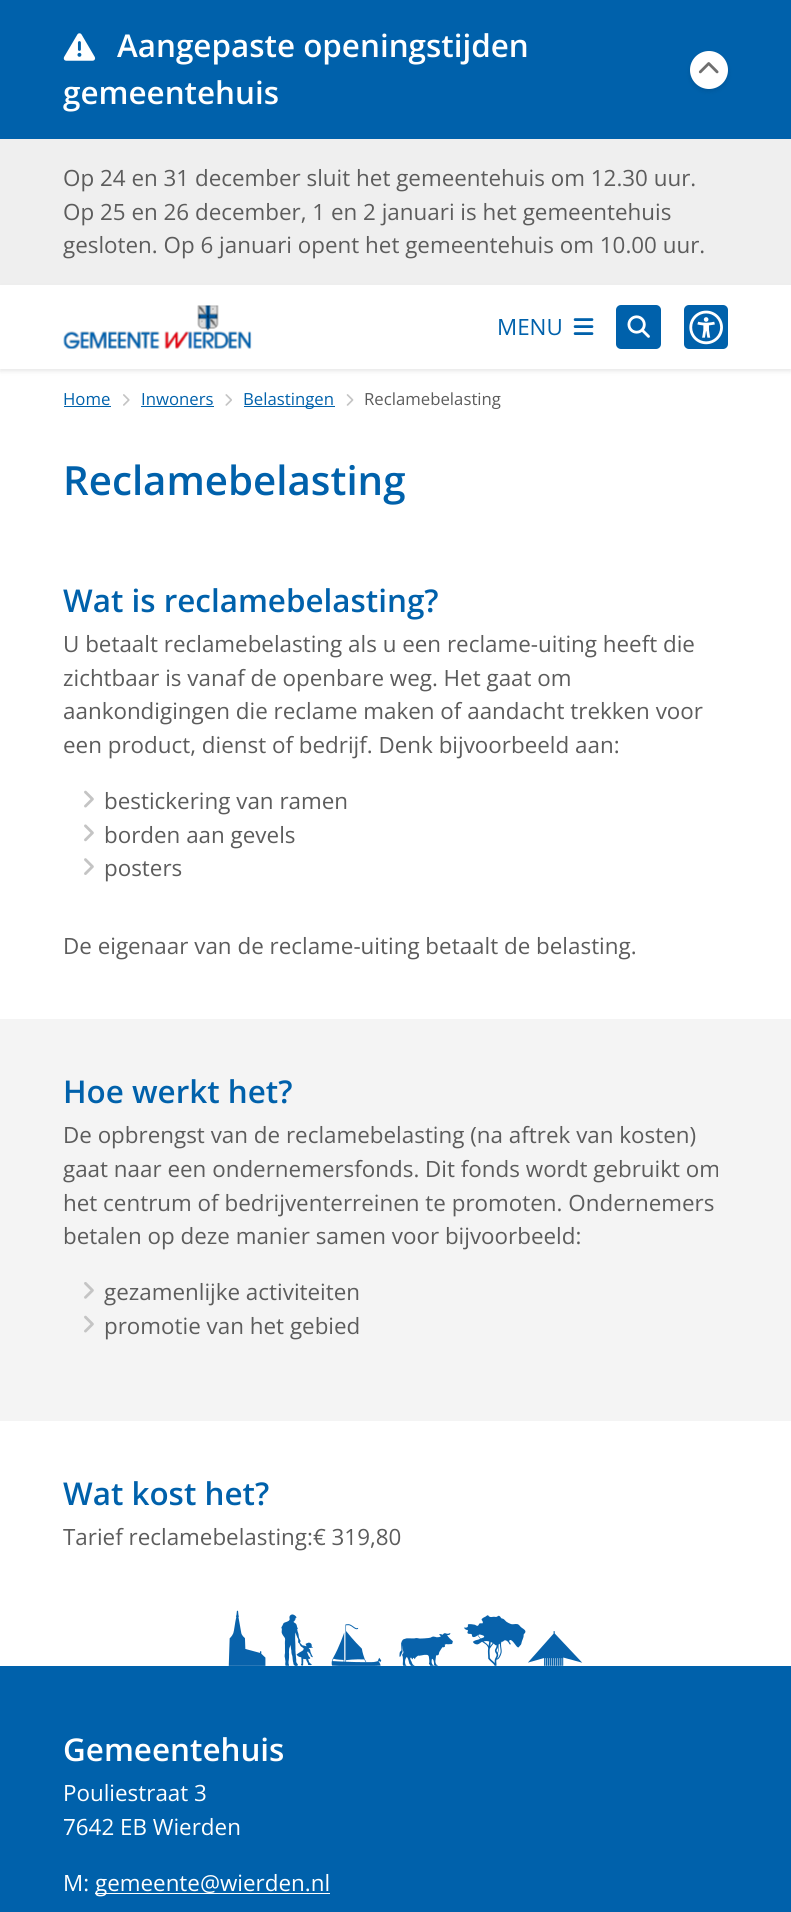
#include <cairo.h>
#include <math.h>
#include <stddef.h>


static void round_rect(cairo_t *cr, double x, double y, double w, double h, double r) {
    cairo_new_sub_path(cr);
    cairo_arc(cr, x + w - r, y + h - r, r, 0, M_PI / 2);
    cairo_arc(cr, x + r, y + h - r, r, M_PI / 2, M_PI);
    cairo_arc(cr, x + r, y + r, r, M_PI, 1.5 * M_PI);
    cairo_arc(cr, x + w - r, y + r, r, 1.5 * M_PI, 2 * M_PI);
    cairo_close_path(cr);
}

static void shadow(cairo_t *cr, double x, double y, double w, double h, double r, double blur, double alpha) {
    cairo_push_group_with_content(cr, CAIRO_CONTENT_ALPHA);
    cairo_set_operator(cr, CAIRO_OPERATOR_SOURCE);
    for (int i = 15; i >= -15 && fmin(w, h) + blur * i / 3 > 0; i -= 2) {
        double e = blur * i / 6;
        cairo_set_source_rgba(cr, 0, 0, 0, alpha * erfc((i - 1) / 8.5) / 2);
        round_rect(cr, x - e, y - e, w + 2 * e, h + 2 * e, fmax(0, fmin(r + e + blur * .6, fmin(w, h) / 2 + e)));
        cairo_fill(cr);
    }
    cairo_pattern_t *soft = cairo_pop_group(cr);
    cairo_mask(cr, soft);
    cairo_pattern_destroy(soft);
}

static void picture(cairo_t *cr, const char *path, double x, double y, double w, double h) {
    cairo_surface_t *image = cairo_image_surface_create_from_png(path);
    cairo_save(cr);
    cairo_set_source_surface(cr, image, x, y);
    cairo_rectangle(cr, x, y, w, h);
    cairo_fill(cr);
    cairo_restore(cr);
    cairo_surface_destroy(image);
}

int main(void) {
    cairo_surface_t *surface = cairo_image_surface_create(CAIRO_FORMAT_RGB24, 791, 1912);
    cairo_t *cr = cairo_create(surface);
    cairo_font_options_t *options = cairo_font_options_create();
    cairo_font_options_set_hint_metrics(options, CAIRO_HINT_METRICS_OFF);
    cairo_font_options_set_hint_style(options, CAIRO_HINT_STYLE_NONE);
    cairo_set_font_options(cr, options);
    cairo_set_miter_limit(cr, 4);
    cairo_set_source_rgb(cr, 1, 1, 1);
    cairo_paint(cr);
    cairo_set_source_rgb(cr, 0.937, 0.937, 0.937);
    cairo_rectangle(cr, 0, 139, 791, 146);
    cairo_fill(cr);
    cairo_set_source_rgb(cr, 0, 0.38, 0.671);
    cairo_rectangle(cr, 0, 0, 64, 139);
    cairo_fill(cr);
    cairo_rectangle(cr, 64, 0, 727, 139);
    cairo_fill(cr);
    picture(cr, "img1.png", 63, 33, 33, 28);
    cairo_select_font_face(cr, "Open Sans SemiBold", CAIRO_FONT_SLANT_NORMAL, CAIRO_FONT_WEIGHT_NORMAL);
    cairo_set_font_size(cr, 31.4);
    cairo_set_source_rgb(cr, 1, 1, 1);
    cairo_move_to(cr, 117, 57);
    cairo_show_text(cr, "Aangepaste openingstijden");
    cairo_move_to(cr, 63, 104);
    cairo_show_text(cr, "gemeentehuis");
    cairo_set_source_rgb(cr, 0, 0, 0);
    shadow(cr, 690, 54, 38, 37, 18.5, 2.5, 0.1);
    cairo_set_source_rgb(cr, 1, 1, 1);
    cairo_arc(cr, 709, 70, 19, 0, 2 * M_PI);
    cairo_fill(cr);
    picture(cr, "img2.png", 698, 62, 21, 12);
    cairo_select_font_face(cr, "Open Sans", CAIRO_FONT_SLANT_NORMAL, CAIRO_FONT_WEIGHT_NORMAL);
    cairo_set_font_size(cr, 22.4);
    cairo_set_source_rgb(cr, 0.361, 0.361, 0.361);
    cairo_move_to(cr, 63, 186);
    cairo_show_text(cr, "Op 24 en 31 december sluit het gemeentehuis om 12.30 uur.");
    cairo_move_to(cr, 63, 220);
    cairo_show_text(cr, "Op 25 en 26 december, 1 en 2 januari is het gemeentehuis");
    cairo_move_to(cr, 63, 253);
    cairo_show_text(cr, "gesloten. Op 6 januari opent het gemeentehuis om 10.00 uur.");
    cairo_set_source_rgb(cr, 0, 0, 0);
    shadow(cr, 0, 288, 791, 83, 0, 2.5, 0.1);
    cairo_set_source_rgb(cr, 1, 1, 1);
    cairo_rectangle(cr, 0, 285, 791, 84);
    cairo_fill(cr);
    picture(cr, "img3.png", 63, 305, 189, 45);
    cairo_set_source_rgb(cr, 0, 0.38, 0.671);
    cairo_move_to(cr, 497, 335);
    cairo_show_text(cr, "MENU");
    picture(cr, "img4.png", 573, 318, 21, 17);
    round_rect(cr, 616, 305, 45, 44, 5);
    cairo_fill(cr);
    picture(cr, "img5.png", 627, 315, 23, 23);
    round_rect(cr, 684, 305, 44, 44, 5);
    cairo_fill(cr);
    picture(cr, "img6.png", 689, 310, 34, 35);
    cairo_set_font_size(cr, 16.75);
    cairo_move_to(cr, 63, 405);
    cairo_show_text(cr, "Home");
    cairo_rectangle(cr, 64, 406, 47, 1);
    cairo_fill(cr);
    picture(cr, "img7.png", 123, 394, 7, 12);
    cairo_move_to(cr, 141, 405);
    cairo_show_text(cr, "Inwoners");
    cairo_rectangle(cr, 141, 406, 73, 1);
    cairo_fill(cr);
    picture(cr, "img8.png", 225, 394, 7, 12);
    cairo_rectangle(cr, 244, 406, 91, 1);
    cairo_fill(cr);
    cairo_move_to(cr, 243, 405);
    cairo_show_text(cr, "Belastingen");
    picture(cr, "img9.png", 346, 394, 8, 12);
    cairo_set_source_rgb(cr, 0.361, 0.361, 0.361);
    cairo_move_to(cr, 364, 405);
    cairo_show_text(cr, "Reclamebelasting");
    cairo_select_font_face(cr, "Open Sans SemiBold", CAIRO_FONT_SLANT_NORMAL, CAIRO_FONT_WEIGHT_NORMAL);
    cairo_set_font_size(cr, 40.25);
    cairo_set_source_rgb(cr, 0, 0.38, 0.671);
    cairo_move_to(cr, 63, 495);
    cairo_show_text(cr, "Reclamebelasting");
    cairo_set_font_size(cr, 31.4);
    cairo_move_to(cr, 63, 612);
    cairo_show_text(cr, "Wat is reclamebelasting?");
    cairo_select_font_face(cr, "Open Sans", CAIRO_FONT_SLANT_NORMAL, CAIRO_FONT_WEIGHT_NORMAL);
    cairo_set_font_size(cr, 22.4);
    cairo_set_source_rgb(cr, 0.361, 0.361, 0.361);
    cairo_move_to(cr, 63, 652);
    cairo_show_text(cr, "U betaalt reclamebelasting als u een reclame-uiting heeft die");
    cairo_move_to(cr, 63, 686);
    cairo_show_text(cr, "zichtbaar is vanaf de openbare weg. Het gaat om");
    cairo_move_to(cr, 63, 719);
    cairo_show_text(cr, "aankondigingen die reclame maken of aandacht trekken voor");
    cairo_move_to(cr, 63, 753);
    cairo_show_text(cr, "een product, dienst of bedrijf. Denk bijvoorbeeld aan:");
    picture(cr, "img10.png", 84, 790, 10, 18);
    cairo_move_to(cr, 104, 809);
    cairo_show_text(cr, "bestickering van ramen");
    picture(cr, "img11.png", 84, 824, 10, 18);
    cairo_move_to(cr, 104, 843);
    cairo_show_text(cr, "borden aan gevels");
    picture(cr, "img12.png", 84, 858, 10, 17);
    cairo_move_to(cr, 104, 876);
    cairo_show_text(cr, "posters");
    cairo_move_to(cr, 63, 954);
    cairo_show_text(cr, "De eigenaar van de reclame-uiting betaalt de belasting.");
    cairo_set_source_rgb(cr, 0.957, 0.957, 0.957);
    cairo_rectangle(cr, 0, 1019, 791, 402);
    cairo_fill(cr);
    cairo_select_font_face(cr, "Open Sans SemiBold", CAIRO_FONT_SLANT_NORMAL, CAIRO_FONT_WEIGHT_NORMAL);
    cairo_set_font_size(cr, 31.4);
    cairo_set_source_rgb(cr, 0, 0.38, 0.671);
    cairo_move_to(cr, 63, 1103);
    cairo_show_text(cr, "Hoe werkt het?");
    cairo_select_font_face(cr, "Open Sans", CAIRO_FONT_SLANT_NORMAL, CAIRO_FONT_WEIGHT_NORMAL);
    cairo_set_font_size(cr, 22.4);
    cairo_set_source_rgb(cr, 0.361, 0.361, 0.361);
    cairo_move_to(cr, 63, 1143);
    cairo_show_text(cr, "De opbrengst van de reclamebelasting (na aftrek van kosten)");
    cairo_move_to(cr, 63, 1177);
    cairo_show_text(cr, "gaat naar een ondernemersfonds. Dit fonds wordt gebruikt om");
    cairo_move_to(cr, 63, 1211);
    cairo_show_text(cr, "het centrum of bedrijventerreinen te promoten. Ondernemers");
    cairo_move_to(cr, 63, 1244);
    cairo_show_text(cr, "betalen op deze manier samen voor bijvoorbeeld:");
    picture(cr, "img13.png", 84, 1282, 10, 17);
    cairo_move_to(cr, 104, 1300);
    cairo_show_text(cr, "gezamenlijke activiteiten");
    picture(cr, "img14.png", 84, 1315, 10, 18);
    cairo_move_to(cr, 104, 1334);
    cairo_show_text(cr, "promotie van het gebied");
    cairo_select_font_face(cr, "Open Sans SemiBold", CAIRO_FONT_SLANT_NORMAL, CAIRO_FONT_WEIGHT_NORMAL);
    cairo_set_font_size(cr, 31.4);
    cairo_set_source_rgb(cr, 0, 0.38, 0.671);
    cairo_move_to(cr, 63, 1505);
    cairo_show_text(cr, "Wat kost het?");
    cairo_select_font_face(cr, "Open Sans", CAIRO_FONT_SLANT_NORMAL, CAIRO_FONT_WEIGHT_NORMAL);
    cairo_set_font_size(cr, 22.4);
    cairo_set_source_rgb(cr, 0.361, 0.361, 0.361);
    cairo_move_to(cr, 63, 1545);
    cairo_show_text(cr, "Tarief reclamebelasting:€ 319,80");
    picture(cr, "img15.png", 228, 1610, 355, 56);
    cairo_set_source_rgb(cr, 0, 0.38, 0.671);
    cairo_rectangle(cr, 0, 1666, 791, 246);
    cairo_fill(cr);
    cairo_select_font_face(cr, "Open Sans SemiBold", CAIRO_FONT_SLANT_NORMAL, CAIRO_FONT_WEIGHT_NORMAL);
    cairo_set_font_size(cr, 31.4);
    cairo_set_source_rgb(cr, 1, 1, 1);
    cairo_move_to(cr, 63, 1761);
    cairo_show_text(cr, "Gemeentehuis");
    cairo_select_font_face(cr, "Open Sans", CAIRO_FONT_SLANT_NORMAL, CAIRO_FONT_WEIGHT_NORMAL);
    cairo_set_font_size(cr, 22.4);
    cairo_move_to(cr, 63, 1801);
    cairo_show_text(cr, "Pouliestraat 3");
    cairo_move_to(cr, 63, 1835);
    cairo_show_text(cr, "7642 EB Wierden");
    cairo_move_to(cr, 63, 1891);
    cairo_show_text(cr, "M:");
    cairo_rectangle(cr, 95, 1893, 235, 1);
    cairo_fill(cr);
    cairo_move_to(cr, 95, 1891);
    cairo_show_text(cr, "gemeente@wierden.nl");
    cairo_surface_write_to_png(surface, "page.png");
    cairo_font_options_destroy(options);
    cairo_destroy(cr);
    cairo_surface_destroy(surface);
    return 0;
}
